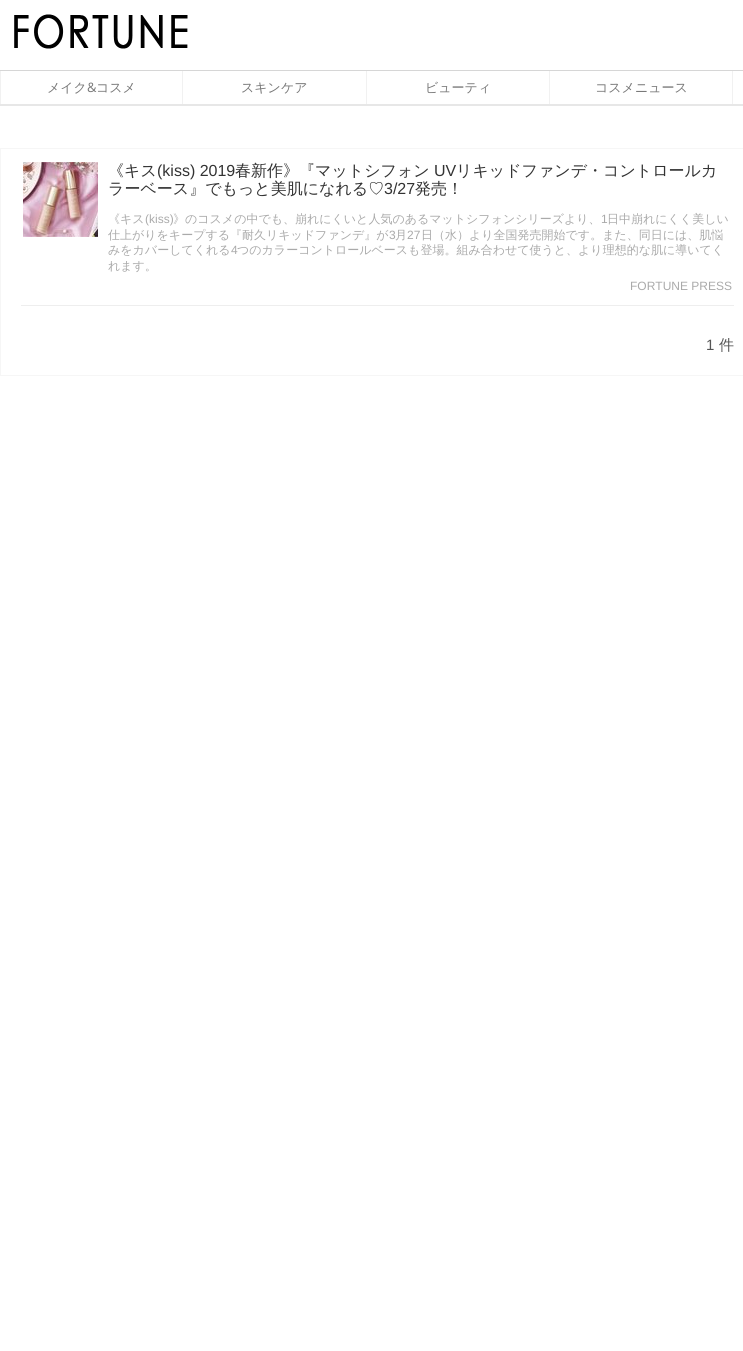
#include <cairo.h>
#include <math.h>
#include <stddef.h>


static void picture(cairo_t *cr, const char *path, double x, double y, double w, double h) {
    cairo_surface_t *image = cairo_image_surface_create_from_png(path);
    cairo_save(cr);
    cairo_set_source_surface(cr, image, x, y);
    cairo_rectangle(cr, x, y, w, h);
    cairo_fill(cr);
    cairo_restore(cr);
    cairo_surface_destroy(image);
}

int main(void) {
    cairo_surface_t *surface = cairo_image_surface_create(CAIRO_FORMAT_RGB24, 743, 1351);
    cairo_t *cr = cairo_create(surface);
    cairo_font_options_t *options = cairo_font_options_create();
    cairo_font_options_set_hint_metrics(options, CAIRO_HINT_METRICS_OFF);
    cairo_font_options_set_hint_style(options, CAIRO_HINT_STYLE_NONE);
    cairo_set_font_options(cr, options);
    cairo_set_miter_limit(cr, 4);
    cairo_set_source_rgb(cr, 1, 1, 1);
    cairo_paint(cr);
    cairo_set_source_rgb(cr, 0.906, 0.906, 0.906);
    cairo_rectangle(cr, 0, 104, 743, 2);
    cairo_fill(cr);
    picture(cr, "img1.png", 14, 14, 174, 35);
    cairo_set_source_rgb(cr, 0.839, 0.839, 0.839);
    cairo_rectangle(cr, 0, 70, 743, 1);
    cairo_fill(cr);
    cairo_set_source_rgb(cr, 0.945, 0.945, 0.945);
    cairo_rectangle(cr, 182, 71, 1, 33);
    cairo_fill(cr);
    cairo_rectangle(cr, 0, 71, 1, 33);
    cairo_fill(cr);
    cairo_select_font_face(cr, "WenQuanYi Zen Hei Medium", CAIRO_FONT_SLANT_NORMAL, CAIRO_FONT_WEIGHT_NORMAL);
    cairo_set_font_size(cr, 13);
    cairo_set_source_rgb(cr, 0.467, 0.467, 0.467);
    cairo_move_to(cr, 47, 92);
    cairo_show_text(cr, "メイク");
    cairo_select_font_face(cr, "Open Sans", CAIRO_FONT_SLANT_NORMAL, CAIRO_FONT_WEIGHT_NORMAL);
    cairo_move_to(cr, 87, 92);
    cairo_show_text(cr, "&");
    cairo_select_font_face(cr, "WenQuanYi Zen Hei Medium", CAIRO_FONT_SLANT_NORMAL, CAIRO_FONT_WEIGHT_NORMAL);
    cairo_move_to(cr, 96, 92);
    cairo_show_text(cr, "コスメ");
    cairo_set_source_rgb(cr, 0.945, 0.945, 0.945);
    cairo_rectangle(cr, 366, 71, 1, 33);
    cairo_fill(cr);
    cairo_set_source_rgb(cr, 0.467, 0.467, 0.467);
    cairo_move_to(cr, 241, 92);
    cairo_show_text(cr, "スキンケア");
    cairo_set_source_rgb(cr, 0.945, 0.945, 0.945);
    cairo_rectangle(cr, 549, 71, 1, 33);
    cairo_fill(cr);
    cairo_set_source_rgb(cr, 0.467, 0.467, 0.467);
    cairo_move_to(cr, 425, 92);
    cairo_show_text(cr, "ビューティ");
    cairo_set_source_rgb(cr, 0.945, 0.945, 0.945);
    cairo_rectangle(cr, 732, 71, 1, 33);
    cairo_fill(cr);
    cairo_set_source_rgb(cr, 0.467, 0.467, 0.467);
    cairo_move_to(cr, 595, 92);
    cairo_show_text(cr, "コスメニュース");
    cairo_rectangle(cr, 0.5, 148.5, 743, 227);
    cairo_set_source_rgb(cr, 0.961, 0.961, 0.961);
    cairo_set_line_width(cr, 1);
    cairo_stroke(cr);
    cairo_set_source_rgb(cr, 0.933, 0.933, 0.933);
    cairo_rectangle(cr, 21, 305, 713, 1);
    cairo_fill(cr);
    picture(cr, "img2.png", 23, 162, 75, 75);
    cairo_set_font_size(cr, 16);
    cairo_set_source_rgb(cr, 0.2, 0.2, 0.2);
    cairo_move_to(cr, 108, 176);
    cairo_show_text(cr, "《キス");
    cairo_select_font_face(cr, "Liberation Sans", CAIRO_FONT_SLANT_NORMAL, CAIRO_FONT_WEIGHT_NORMAL);
    cairo_move_to(cr, 157, 176);
    cairo_show_text(cr, "(kiss) 2019");
    cairo_select_font_face(cr, "WenQuanYi Zen Hei Medium", CAIRO_FONT_SLANT_NORMAL, CAIRO_FONT_WEIGHT_NORMAL);
    cairo_move_to(cr, 235, 176);
    cairo_show_text(cr, "春新作》『マットシフォン");
    cairo_select_font_face(cr, "Liberation Sans", CAIRO_FONT_SLANT_NORMAL, CAIRO_FONT_WEIGHT_NORMAL);
    cairo_move_to(cr, 434, 176);
    cairo_show_text(cr, "UV");
    cairo_select_font_face(cr, "WenQuanYi Zen Hei Medium", CAIRO_FONT_SLANT_NORMAL, CAIRO_FONT_WEIGHT_NORMAL);
    cairo_move_to(cr, 456, 176);
    cairo_show_text(cr, "リキッドファンデ・コントロールカ");
    cairo_move_to(cr, 108, 194);
    cairo_show_text(cr, "ラーベース』でもっと美肌になれる♡");
    cairo_select_font_face(cr, "Liberation Sans", CAIRO_FONT_SLANT_NORMAL, CAIRO_FONT_WEIGHT_NORMAL);
    cairo_move_to(cr, 384, 194);
    cairo_show_text(cr, "3/27");
    cairo_select_font_face(cr, "WenQuanYi Zen Hei Medium", CAIRO_FONT_SLANT_NORMAL, CAIRO_FONT_WEIGHT_NORMAL);
    cairo_move_to(cr, 415, 194);
    cairo_show_text(cr, "発売！");
    cairo_set_font_size(cr, 12);
    cairo_set_source_rgb(cr, 0.667, 0.667, 0.667);
    cairo_move_to(cr, 108, 223);
    cairo_show_text(cr, "《キス");
    cairo_select_font_face(cr, "Liberation Sans", CAIRO_FONT_SLANT_NORMAL, CAIRO_FONT_WEIGHT_NORMAL);
    cairo_move_to(cr, 145, 223);
    cairo_show_text(cr, "(kiss)");
    cairo_select_font_face(cr, "WenQuanYi Zen Hei Medium", CAIRO_FONT_SLANT_NORMAL, CAIRO_FONT_WEIGHT_NORMAL);
    cairo_move_to(cr, 173, 223);
    cairo_show_text(cr, "》のコスメの中でも、崩れにくいと人気のあるマットシフォンシリーズより、");
    cairo_select_font_face(cr, "Liberation Sans", CAIRO_FONT_SLANT_NORMAL, CAIRO_FONT_WEIGHT_NORMAL);
    cairo_move_to(cr, 601, 223);
    cairo_show_text(cr, "1");
    cairo_select_font_face(cr, "WenQuanYi Zen Hei Medium", CAIRO_FONT_SLANT_NORMAL, CAIRO_FONT_WEIGHT_NORMAL);
    cairo_move_to(cr, 607, 223);
    cairo_show_text(cr, "日中崩れにくく美しい");
    cairo_move_to(cr, 108, 239);
    cairo_show_text(cr, "仕上がりをキープする『耐久リキッドファンデ』が");
    cairo_select_font_face(cr, "Liberation Sans", CAIRO_FONT_SLANT_NORMAL, CAIRO_FONT_WEIGHT_NORMAL);
    cairo_move_to(cr, 389, 239);
    cairo_show_text(cr, "3");
    cairo_select_font_face(cr, "WenQuanYi Zen Hei Medium", CAIRO_FONT_SLANT_NORMAL, CAIRO_FONT_WEIGHT_NORMAL);
    cairo_move_to(cr, 395, 239);
    cairo_show_text(cr, "月");
    cairo_select_font_face(cr, "Liberation Sans", CAIRO_FONT_SLANT_NORMAL, CAIRO_FONT_WEIGHT_NORMAL);
    cairo_move_to(cr, 407, 239);
    cairo_show_text(cr, "27");
    cairo_select_font_face(cr, "WenQuanYi Zen Hei Medium", CAIRO_FONT_SLANT_NORMAL, CAIRO_FONT_WEIGHT_NORMAL);
    cairo_move_to(cr, 421, 239);
    cairo_show_text(cr, "日（水）より全国発売開始です。また、同日には、肌悩");
    cairo_move_to(cr, 108, 254);
    cairo_show_text(cr, "みをカバーしてくれる");
    cairo_select_font_face(cr, "Liberation Sans", CAIRO_FONT_SLANT_NORMAL, CAIRO_FONT_WEIGHT_NORMAL);
    cairo_move_to(cr, 231, 254);
    cairo_show_text(cr, "4");
    cairo_select_font_face(cr, "WenQuanYi Zen Hei Medium", CAIRO_FONT_SLANT_NORMAL, CAIRO_FONT_WEIGHT_NORMAL);
    cairo_move_to(cr, 237, 254);
    cairo_show_text(cr, "つのカラーコントロールベースも登場。組み合わせて使うと、より理想的な肌に導いてく");
    cairo_move_to(cr, 108, 270);
    cairo_show_text(cr, "れます。");
    cairo_select_font_face(cr, "Liberation Sans", CAIRO_FONT_SLANT_NORMAL, CAIRO_FONT_WEIGHT_NORMAL);
    cairo_move_to(cr, 630, 290);
    cairo_show_text(cr, "FORTUNE PRESS");
    cairo_set_font_size(cr, 15);
    cairo_set_source_rgb(cr, 0.333, 0.333, 0.333);
    cairo_move_to(cr, 706, 350);
    cairo_show_text(cr, "1");
    cairo_select_font_face(cr, "WenQuanYi Zen Hei Medium", CAIRO_FONT_SLANT_NORMAL, CAIRO_FONT_WEIGHT_NORMAL);
    cairo_move_to(cr, 719, 350);
    cairo_show_text(cr, "件");
    cairo_surface_write_to_png(surface, "page.png");
    cairo_font_options_destroy(options);
    cairo_destroy(cr);
    cairo_surface_destroy(surface);
    return 0;
}
